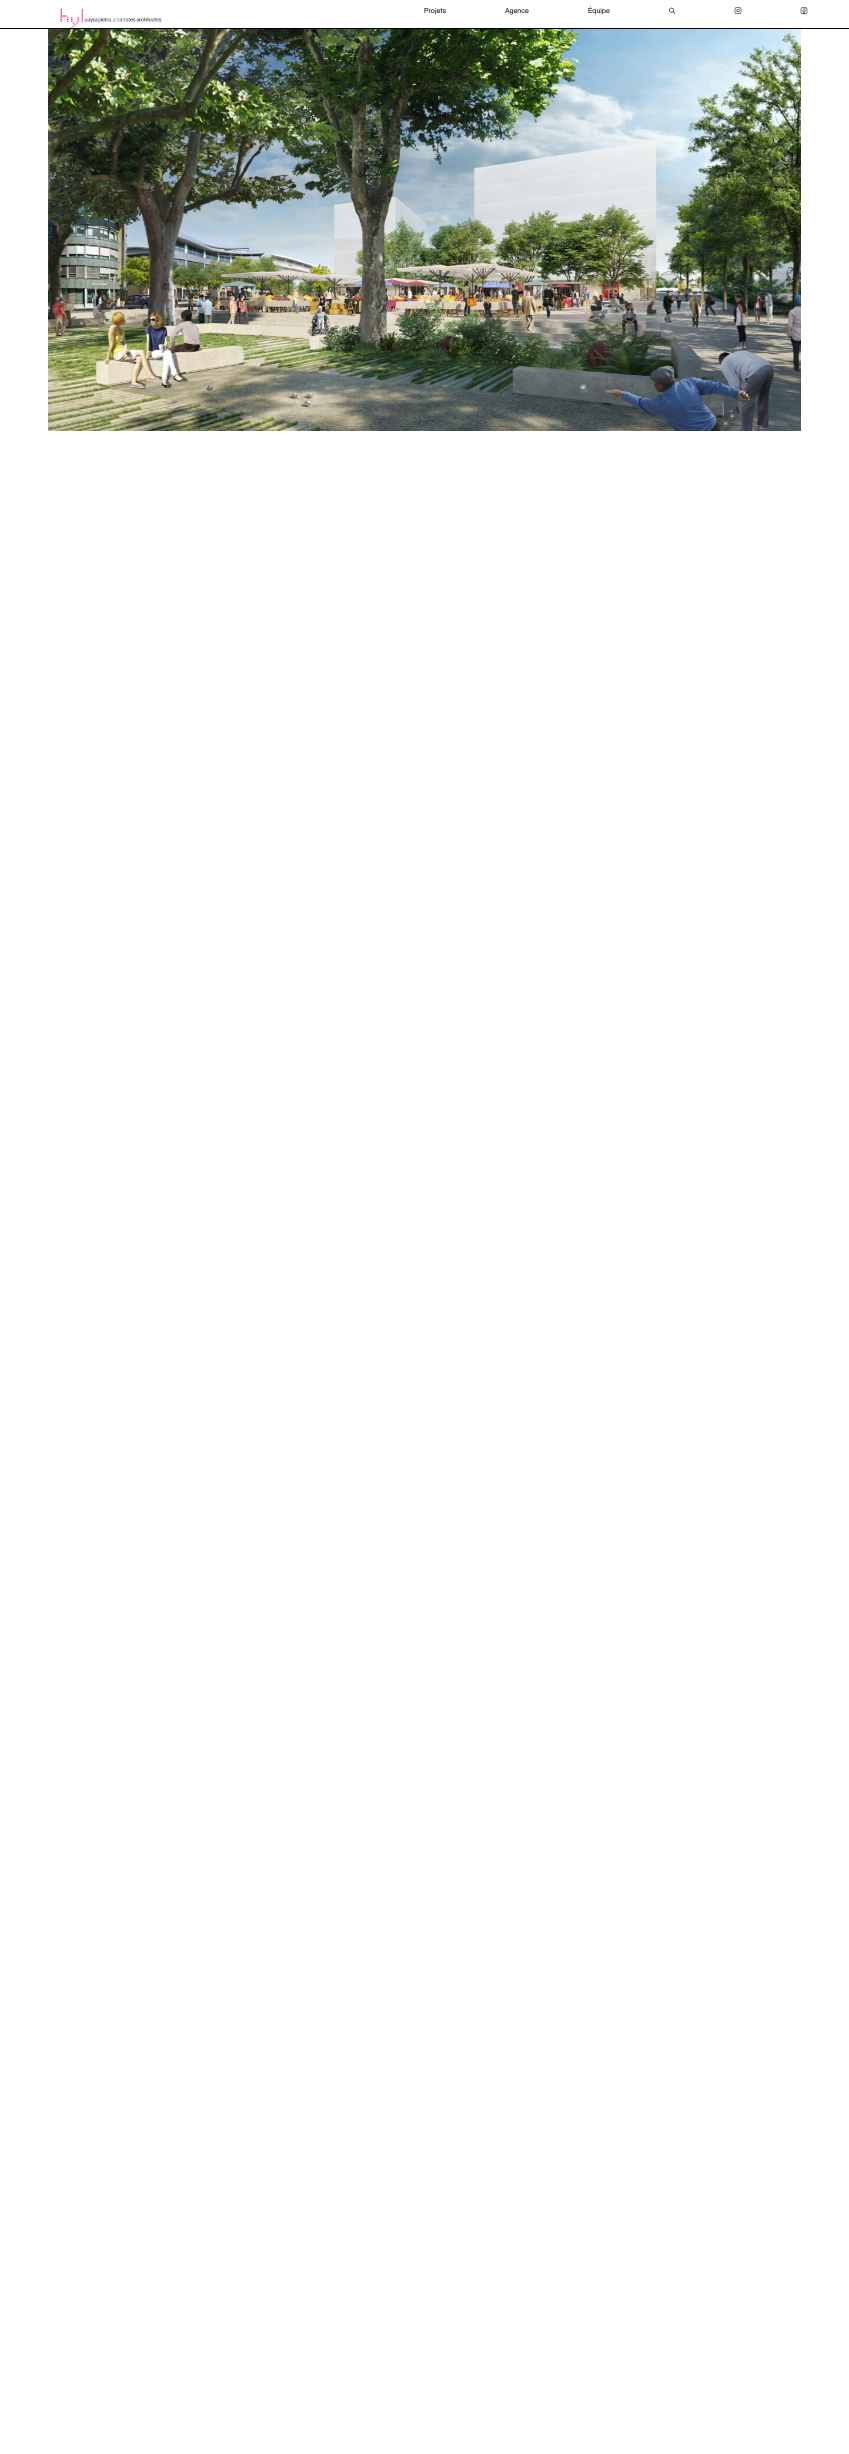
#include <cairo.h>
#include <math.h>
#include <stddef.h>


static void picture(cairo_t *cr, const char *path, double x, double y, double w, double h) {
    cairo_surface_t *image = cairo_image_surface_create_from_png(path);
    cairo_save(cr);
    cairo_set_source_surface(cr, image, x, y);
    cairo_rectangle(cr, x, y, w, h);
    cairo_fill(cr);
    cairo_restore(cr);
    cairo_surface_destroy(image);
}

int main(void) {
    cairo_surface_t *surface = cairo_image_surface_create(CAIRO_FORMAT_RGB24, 849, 2454);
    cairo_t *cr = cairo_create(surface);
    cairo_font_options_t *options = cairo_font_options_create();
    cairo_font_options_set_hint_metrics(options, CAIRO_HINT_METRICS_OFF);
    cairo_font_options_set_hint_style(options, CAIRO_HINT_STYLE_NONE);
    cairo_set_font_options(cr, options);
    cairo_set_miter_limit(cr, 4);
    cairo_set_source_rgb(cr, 1, 1, 1);
    cairo_paint(cr);
    cairo_set_source_rgb(cr, 0, 0, 0);
    cairo_rectangle(cr, 0, 28, 849, 1);
    cairo_fill(cr);
    picture(cr, "img1.png", 60, 8, 102, 21);
    cairo_select_font_face(cr, "Helvetica Neue", CAIRO_FONT_SLANT_NORMAL, CAIRO_FONT_WEIGHT_NORMAL);
    cairo_set_font_size(cr, 7);
    cairo_move_to(cr, 424, 13);
    cairo_show_text(cr, "Projets");
    cairo_move_to(cr, 505, 13);
    cairo_show_text(cr, "Agence");
    cairo_move_to(cr, 588, 13);
    cairo_show_text(cr, "Équipe");
    cairo_move_to(cr, 669, 13);
    cairo_show_text(cr, "Ώ");
    cairo_move_to(cr, 735, 13);
    cairo_show_text(cr, "Ό");
    cairo_move_to(cr, 801, 13);
    cairo_show_text(cr, "Ύ");
    picture(cr, "img2.png", 48, 29, 753, 402);
    cairo_surface_write_to_png(surface, "page.png");
    cairo_font_options_destroy(options);
    cairo_destroy(cr);
    cairo_surface_destroy(surface);
    return 0;
}
